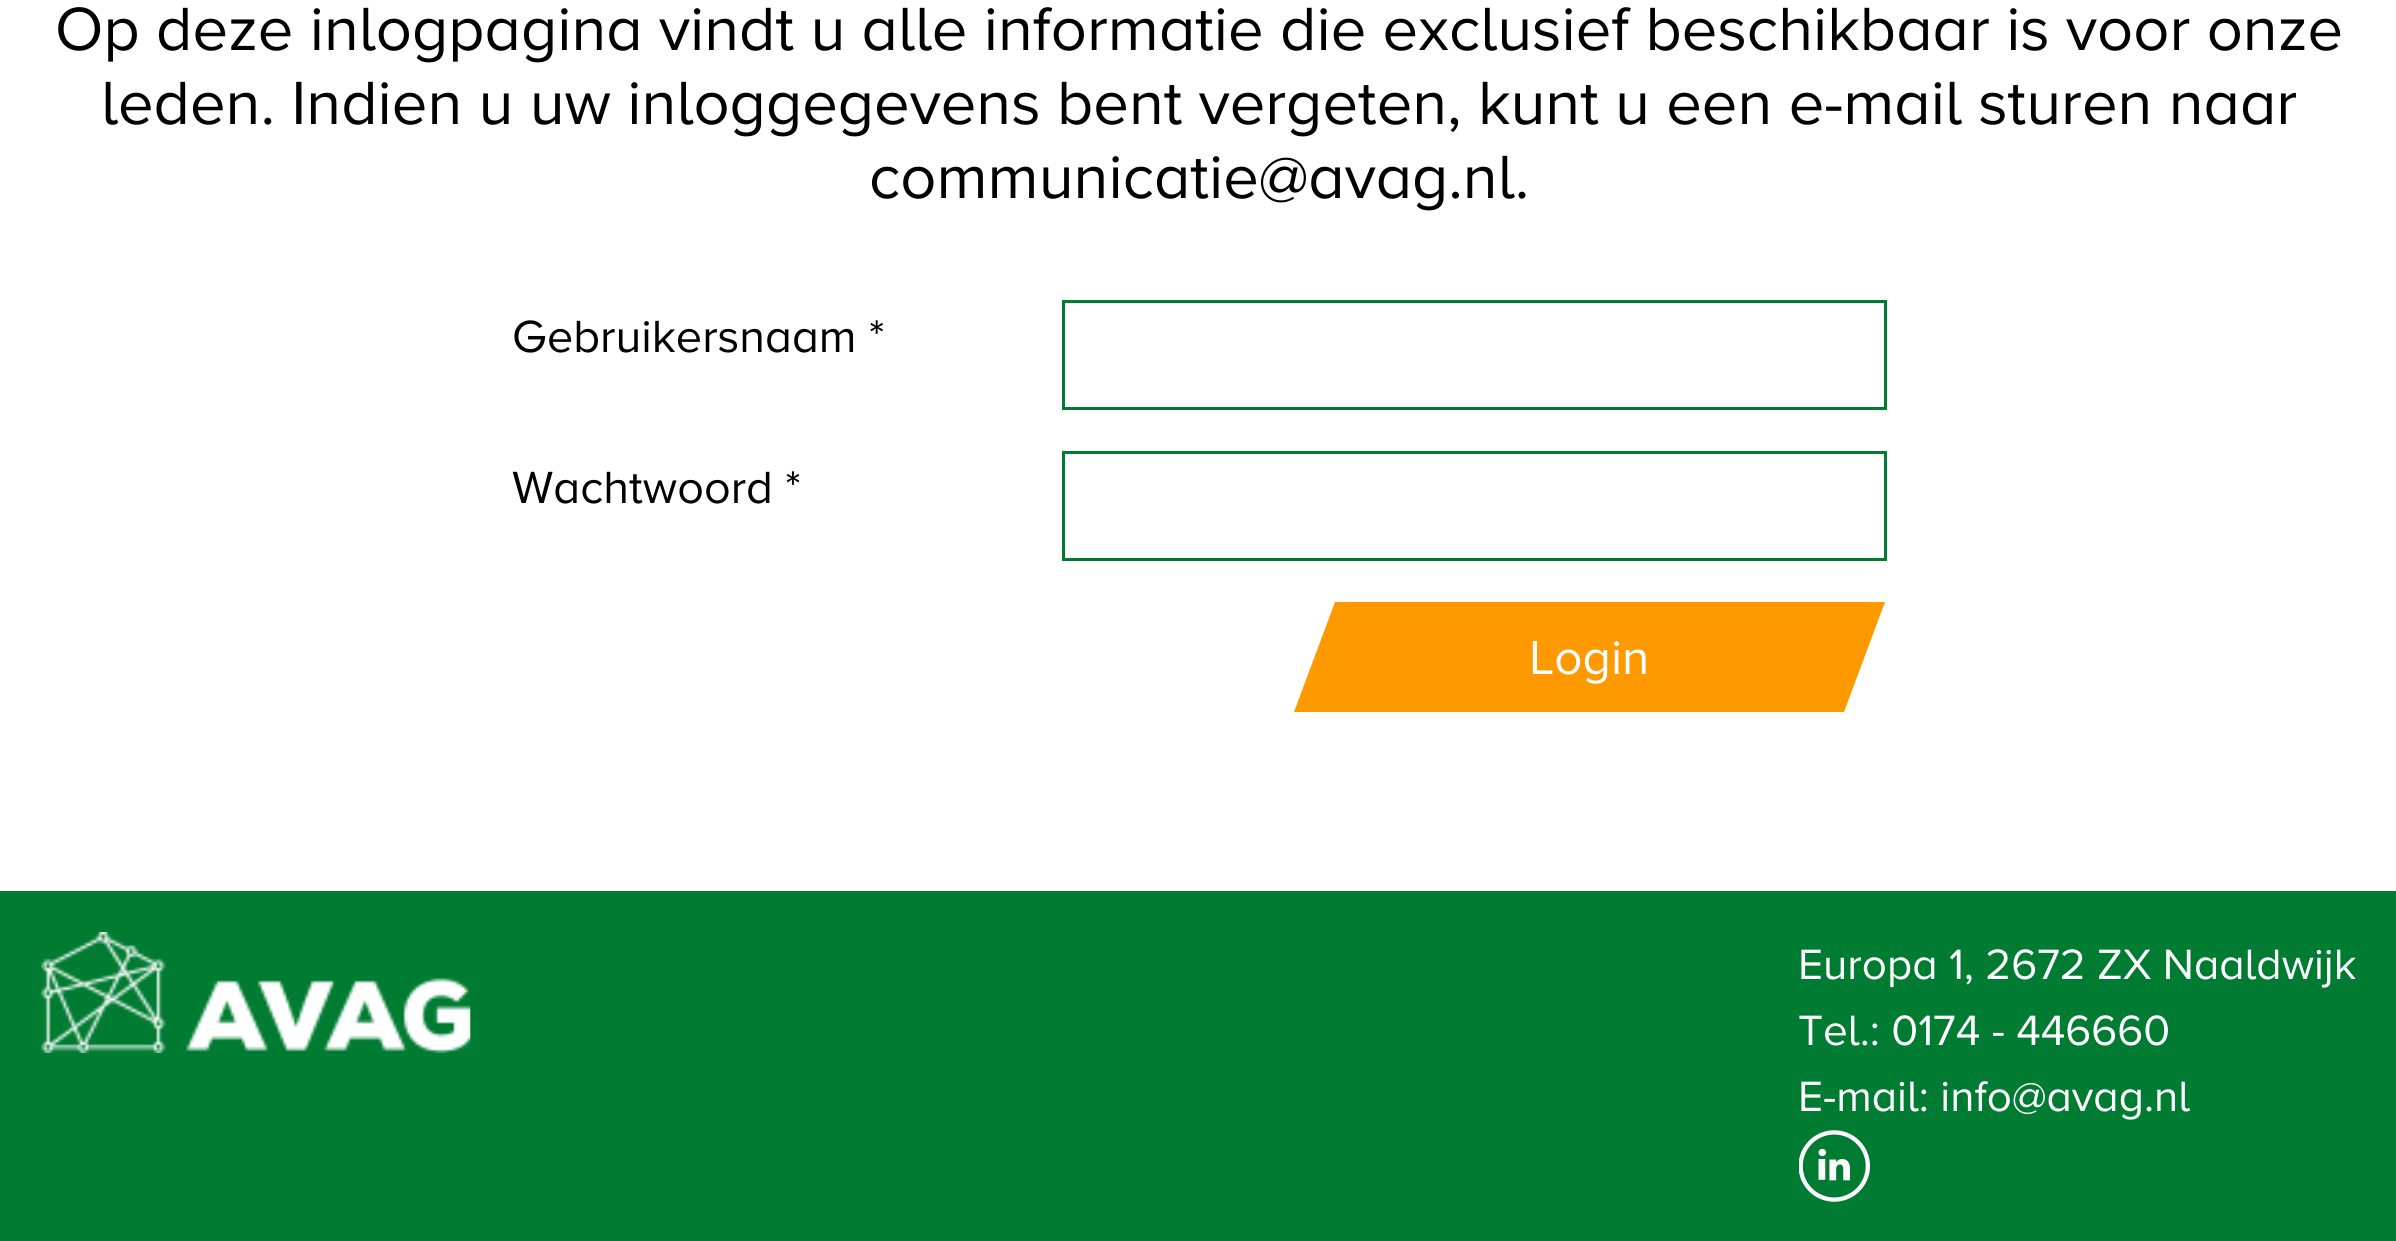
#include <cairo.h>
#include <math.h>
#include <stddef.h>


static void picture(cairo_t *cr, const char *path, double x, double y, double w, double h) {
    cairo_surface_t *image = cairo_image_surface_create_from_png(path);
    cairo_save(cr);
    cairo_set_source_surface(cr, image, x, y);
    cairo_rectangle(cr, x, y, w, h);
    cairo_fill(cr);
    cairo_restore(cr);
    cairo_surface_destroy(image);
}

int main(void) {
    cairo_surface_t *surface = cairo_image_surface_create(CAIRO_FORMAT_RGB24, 2396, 1241);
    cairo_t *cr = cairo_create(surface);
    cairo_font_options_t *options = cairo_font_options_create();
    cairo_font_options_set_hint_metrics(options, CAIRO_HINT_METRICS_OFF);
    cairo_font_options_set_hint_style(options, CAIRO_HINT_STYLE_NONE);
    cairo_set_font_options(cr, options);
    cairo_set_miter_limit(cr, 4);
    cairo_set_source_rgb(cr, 1, 1, 1);
    cairo_paint(cr);
    cairo_select_font_face(cr, "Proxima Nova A", CAIRO_FONT_SLANT_NORMAL, CAIRO_FONT_WEIGHT_NORMAL);
    cairo_set_font_size(cr, 63.25);
    cairo_set_source_rgb(cr, 0, 0, 0);
    cairo_move_to(cr, 55, 50);
    cairo_show_text(cr, "Op deze inlogpagina vindt u alle informatie die exclusief beschikbaar is voor onze");
    cairo_move_to(cr, 101, 124);
    cairo_show_text(cr, "leden. Indien u uw inloggegevens bent vergeten, kunt u een e-mail sturen naar");
    cairo_move_to(cr, 869, 198);
    cairo_show_text(cr, "communicatie@avag.nl.");
    cairo_set_font_size(cr, 46.75);
    cairo_move_to(cr, 512, 352);
    cairo_show_text(cr, "Gebruikersnaam *");
    cairo_rectangle(cr, 1063.5, 301.5, 822, 107);
    cairo_set_source_rgb(cr, 0, 0.486, 0.196);
    cairo_set_line_width(cr, 3);
    cairo_stroke(cr);
    cairo_set_source_rgb(cr, 0, 0, 0);
    cairo_move_to(cr, 512, 503);
    cairo_show_text(cr, "Wachtwoord *");
    cairo_rectangle(cr, 1063.5, 452.5, 822, 107);
    cairo_set_source_rgb(cr, 0, 0.486, 0.196);
    cairo_stroke(cr);
    cairo_set_source_rgb(cr, 1, 0.6, 0);
    cairo_new_path(cr);
    cairo_move_to(cr, 1335, 602);
    cairo_line_to(cr, 1885, 602);
    cairo_line_to(cr, 1844, 712);
    cairo_line_to(cr, 1294, 712);
    cairo_close_path(cr);
    cairo_fill(cr);
    cairo_set_font_size(cr, 49.5);
    cairo_set_source_rgb(cr, 1, 1, 1);
    cairo_move_to(cr, 1529, 674);
    cairo_show_text(cr, "Login");
    cairo_set_source_rgb(cr, 0, 0.486, 0.196);
    cairo_rectangle(cr, 0, 891, 2396, 350);
    cairo_fill(cr);
    picture(cr, "img1.png", 41, 932, 430, 121);
    cairo_set_font_size(cr, 44);
    cairo_set_source_rgb(cr, 1, 1, 1);
    cairo_move_to(cr, 1798, 979);
    cairo_show_text(cr, "Europa 1, 2672 ZX Naaldwijk");
    cairo_move_to(cr, 1798, 1045);
    cairo_show_text(cr, "Tel.: 0174 - 446660");
    cairo_move_to(cr, 1798, 1111);
    cairo_show_text(cr, "E-mail: info@avag.nl");
    picture(cr, "img2.png", 1799, 1130, 71, 72);
    cairo_surface_write_to_png(surface, "page.png");
    cairo_font_options_destroy(options);
    cairo_destroy(cr);
    cairo_surface_destroy(surface);
    return 0;
}
